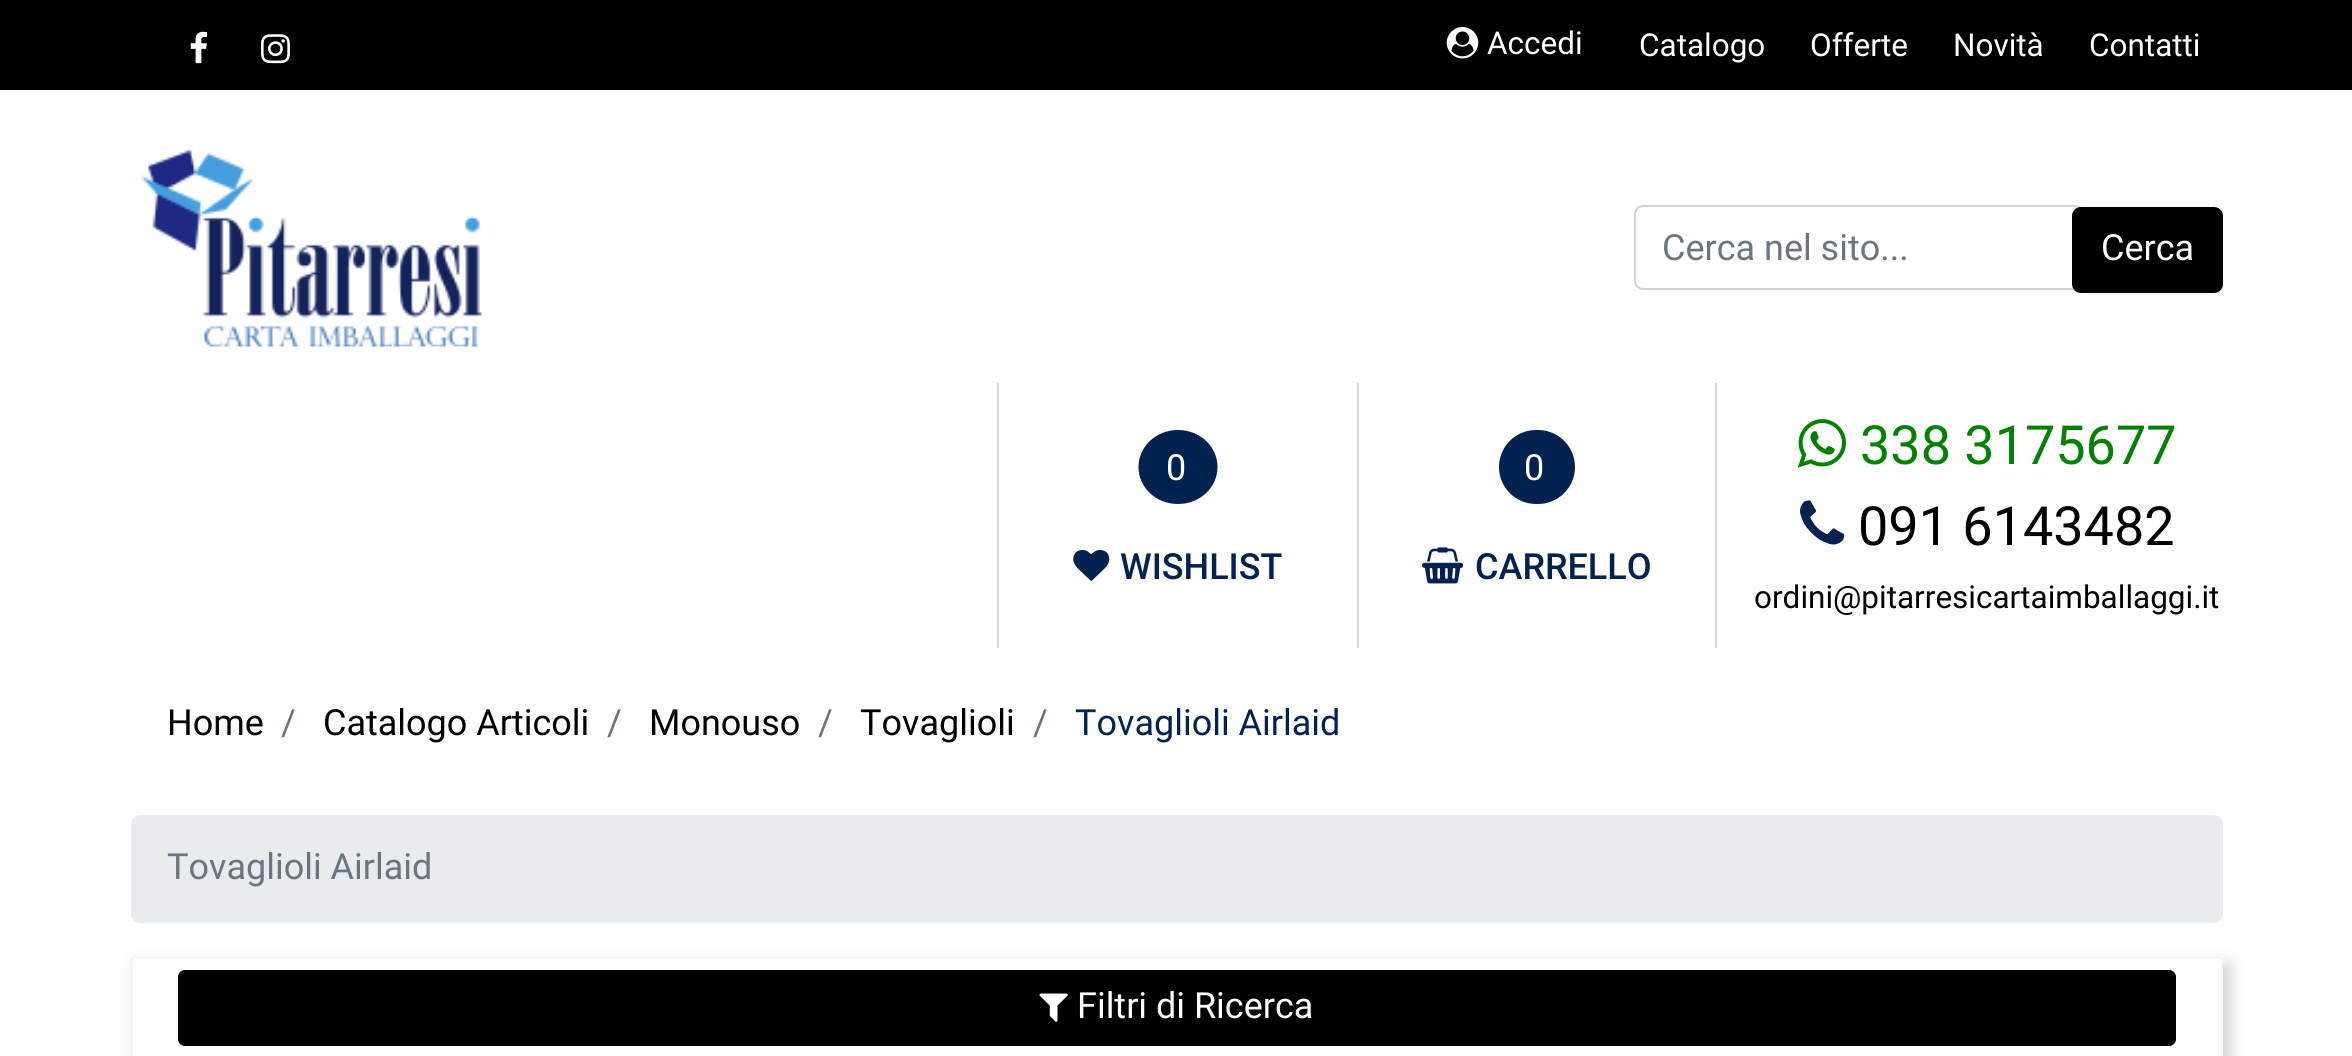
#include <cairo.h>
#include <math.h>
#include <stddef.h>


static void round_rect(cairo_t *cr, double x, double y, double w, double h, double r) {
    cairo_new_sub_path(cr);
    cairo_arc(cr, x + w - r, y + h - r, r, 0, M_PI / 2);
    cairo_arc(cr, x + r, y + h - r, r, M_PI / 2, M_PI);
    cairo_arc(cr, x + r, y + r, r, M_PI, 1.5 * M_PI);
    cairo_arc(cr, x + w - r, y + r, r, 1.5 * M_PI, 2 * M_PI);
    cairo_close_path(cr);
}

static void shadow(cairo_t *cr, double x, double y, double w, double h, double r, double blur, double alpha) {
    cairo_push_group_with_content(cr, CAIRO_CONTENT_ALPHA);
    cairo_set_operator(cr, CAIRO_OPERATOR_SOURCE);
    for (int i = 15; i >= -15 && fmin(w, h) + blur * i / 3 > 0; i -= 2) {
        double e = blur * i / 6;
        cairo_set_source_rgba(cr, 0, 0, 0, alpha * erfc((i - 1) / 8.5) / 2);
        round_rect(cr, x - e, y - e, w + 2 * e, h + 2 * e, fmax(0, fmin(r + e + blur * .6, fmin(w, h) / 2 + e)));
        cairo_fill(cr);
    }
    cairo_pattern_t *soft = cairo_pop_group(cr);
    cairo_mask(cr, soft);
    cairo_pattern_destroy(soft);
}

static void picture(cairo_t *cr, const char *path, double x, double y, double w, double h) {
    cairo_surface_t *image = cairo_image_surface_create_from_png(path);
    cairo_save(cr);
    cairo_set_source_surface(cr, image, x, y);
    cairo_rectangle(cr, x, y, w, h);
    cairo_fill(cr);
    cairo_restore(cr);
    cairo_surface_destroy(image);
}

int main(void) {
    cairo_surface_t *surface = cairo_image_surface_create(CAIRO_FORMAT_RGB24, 2352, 1056);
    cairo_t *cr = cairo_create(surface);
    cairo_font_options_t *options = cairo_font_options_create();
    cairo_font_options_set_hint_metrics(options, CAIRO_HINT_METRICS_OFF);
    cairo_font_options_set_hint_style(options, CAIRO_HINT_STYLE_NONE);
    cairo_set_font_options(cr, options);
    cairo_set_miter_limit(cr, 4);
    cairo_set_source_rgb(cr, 1, 1, 1);
    cairo_paint(cr);
    cairo_set_source_rgb(cr, 0, 0, 0);
    cairo_rectangle(cr, 0, 0, 2352, 90);
    cairo_fill(cr);
    picture(cr, "img1.png", 190, 31, 18, 33);
    picture(cr, "img2.png", 261, 34, 29, 30);
    picture(cr, "img3.png", 1446, 27, 33, 32);
    cairo_select_font_face(cr, "Roboto", CAIRO_FONT_SLANT_NORMAL, CAIRO_FONT_WEIGHT_NORMAL);
    cairo_set_font_size(cr, 31.5);
    cairo_set_source_rgb(cr, 1, 1, 1);
    cairo_move_to(cr, 1487, 54);
    cairo_show_text(cr, "Accedi");
    cairo_move_to(cr, 1639, 56);
    cairo_show_text(cr, "Catalogo");
    cairo_move_to(cr, 1810, 56);
    cairo_show_text(cr, "Offerte");
    cairo_move_to(cr, 1953, 56);
    cairo_show_text(cr, "Novità");
    cairo_move_to(cr, 2089, 56);
    cairo_show_text(cr, "Contatti");
    picture(cr, "img4.png", 141, 150, 342, 198);
    round_rect(cr, 1635, 206, 448, 83, 8);
    cairo_set_source_rgb(cr, 0.808, 0.831, 0.855);
    cairo_stroke(cr);
    cairo_set_font_size(cr, 36);
    cairo_set_source_rgb(cr, 0.424, 0.459, 0.49);
    cairo_move_to(cr, 1662, 260);
    cairo_show_text(cr, "Cerca nel sito...");
    cairo_set_source_rgb(cr, 0, 0, 0);
    round_rect(cr, 2072, 207, 151, 86, 9);
    cairo_fill(cr);
    cairo_set_source_rgb(cr, 1, 1, 1);
    cairo_move_to(cr, 2101, 260);
    cairo_show_text(cr, "Cerca");
    cairo_set_source_rgb(cr, 0.851, 0.851, 0.851);
    cairo_rectangle(cr, 997, 383, 2, 265);
    cairo_fill(cr);
    cairo_set_source_rgb(cr, 0.004, 0.133, 0.31);
    cairo_new_path(cr);
    cairo_move_to(cr, 1178, 430);
    cairo_curve_to(cr, 1200, 430, 1217.5, 446.5, 1217.5, 467);
    cairo_curve_to(cr, 1217.5, 487.5, 1200, 504, 1178, 504);
    cairo_curve_to(cr, 1156, 504, 1138.5, 487.5, 1138.5, 467);
    cairo_curve_to(cr, 1138.5, 446.5, 1156, 430, 1178, 430);
    cairo_close_path(cr);
    cairo_fill(cr);
    cairo_set_source_rgb(cr, 1, 1, 1);
    cairo_move_to(cr, 1166, 480);
    cairo_show_text(cr, "0");
    picture(cr, "img5.png", 1073, 550, 37, 31);
    cairo_select_font_face(cr, "Roboto Medium", CAIRO_FONT_SLANT_NORMAL, CAIRO_FONT_WEIGHT_NORMAL);
    cairo_set_source_rgb(cr, 0.004, 0.133, 0.31);
    cairo_move_to(cr, 1120, 579);
    cairo_show_text(cr, "WISHLIST");
    cairo_set_source_rgb(cr, 0.851, 0.851, 0.851);
    cairo_rectangle(cr, 1715, 383, 2, 265);
    cairo_fill(cr);
    cairo_rectangle(cr, 1357, 383, 2, 265);
    cairo_fill(cr);
    cairo_set_source_rgb(cr, 0.004, 0.133, 0.31);
    round_rect(cr, 1499, 430, 76, 74, 37);
    cairo_fill(cr);
    cairo_select_font_face(cr, "Roboto", CAIRO_FONT_SLANT_NORMAL, CAIRO_FONT_WEIGHT_NORMAL);
    cairo_set_source_rgb(cr, 1, 1, 1);
    cairo_move_to(cr, 1524, 480);
    cairo_show_text(cr, "0");
    picture(cr, "img6.png", 1422, 547, 42, 37);
    cairo_select_font_face(cr, "Roboto Medium", CAIRO_FONT_SLANT_NORMAL, CAIRO_FONT_WEIGHT_NORMAL);
    cairo_set_source_rgb(cr, 0.004, 0.133, 0.31);
    cairo_move_to(cr, 1475, 579);
    cairo_show_text(cr, "CARRELLO");
    picture(cr, "img7.png", 1797, 419, 49, 49);
    cairo_select_font_face(cr, "Roboto", CAIRO_FONT_SLANT_NORMAL, CAIRO_FONT_WEIGHT_NORMAL);
    cairo_set_font_size(cr, 54);
    cairo_set_source_rgb(cr, 0, 0.502, 0);
    cairo_move_to(cr, 1860, 464);
    cairo_show_text(cr, "338 3175677");
    picture(cr, "img8.png", 1800, 500, 45, 45);
    cairo_set_source_rgb(cr, 0, 0, 0);
    cairo_move_to(cr, 1858, 545);
    cairo_show_text(cr, "091 6143482");
    cairo_set_font_size(cr, 31.5);
    cairo_move_to(cr, 1754, 608);
    cairo_show_text(cr, "ordini@pitarresicartaimballaggi.it");
    cairo_set_font_size(cr, 36);
    cairo_move_to(cr, 167, 735);
    cairo_show_text(cr, "Home");
    cairo_set_source_rgb(cr, 0.424, 0.459, 0.49);
    cairo_move_to(cr, 281, 735);
    cairo_show_text(cr, "/");
    cairo_set_source_rgb(cr, 0, 0, 0);
    cairo_move_to(cr, 323, 735);
    cairo_show_text(cr, "Catalogo Articoli");
    cairo_set_source_rgb(cr, 0.424, 0.459, 0.49);
    cairo_move_to(cr, 607, 735);
    cairo_show_text(cr, "/");
    cairo_set_source_rgb(cr, 0, 0, 0);
    cairo_move_to(cr, 649, 735);
    cairo_show_text(cr, "Monouso");
    cairo_set_source_rgb(cr, 0.424, 0.459, 0.49);
    cairo_move_to(cr, 818, 735);
    cairo_show_text(cr, "/");
    cairo_set_source_rgb(cr, 0, 0, 0);
    cairo_move_to(cr, 860, 735);
    cairo_show_text(cr, "Tovaglioli");
    cairo_set_source_rgb(cr, 0.424, 0.459, 0.49);
    cairo_move_to(cr, 1033, 735);
    cairo_show_text(cr, "/");
    cairo_set_source_rgb(cr, 0.004, 0.133, 0.31);
    cairo_move_to(cr, 1075, 735);
    cairo_show_text(cr, "Tovaglioli Airlaid");
    cairo_set_source_rgb(cr, 0.914, 0.925, 0.937);
    round_rect(cr, 131, 815, 2092, 108, 9);
    cairo_fill(cr);
    cairo_set_source_rgb(cr, 0.424, 0.459, 0.49);
    cairo_move_to(cr, 167, 879);
    cairo_show_text(cr, "Tovaglioli Airlaid");
    cairo_save(cr);
    cairo_set_fill_rule(cr, CAIRO_FILL_RULE_EVEN_ODD);
    cairo_new_path(cr);
    cairo_move_to(cr, 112, 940);
    cairo_line_to(cr, 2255, 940);
    cairo_line_to(cr, 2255, 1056);
    cairo_line_to(cr, 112, 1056);
    cairo_close_path(cr);
    cairo_move_to(cr, 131, 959);
    cairo_line_to(cr, 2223, 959);
    cairo_line_to(cr, 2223, 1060);
    cairo_line_to(cr, 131, 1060);
    cairo_close_path(cr);
    cairo_clip(cr);
    cairo_set_source_rgb(cr, 0.82, 0.82, 0.82);
    shadow(cr, 137, 965, 2093, 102, 0, 8, 1);
    cairo_restore(cr);
    cairo_set_source_rgba(cr, 0.953, 0.953, 0.953, 0.88);
    cairo_new_path(cr);
    cairo_move_to(cr, 2223, 958);
    cairo_line_to(cr, 2223, 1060);
    cairo_line_to(cr, 2221, 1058);
    cairo_line_to(cr, 2221, 958);
    cairo_close_path(cr);
    cairo_fill(cr);
    cairo_new_path(cr);
    cairo_move_to(cr, 130, 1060);
    cairo_line_to(cr, 130, 958);
    cairo_line_to(cr, 133, 958);
    cairo_line_to(cr, 133, 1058);
    cairo_close_path(cr);
    cairo_fill(cr);
    cairo_set_source_rgb(cr, 0, 0, 0);
    round_rect(cr, 178, 970, 1998, 76, 7);
    cairo_fill(cr);
    picture(cr, "img9.png", 1039, 993, 29, 29);
    cairo_set_source_rgb(cr, 1, 1, 1);
    cairo_move_to(cr, 1077, 1018);
    cairo_show_text(cr, "Filtri di Ricerca");
    cairo_surface_write_to_png(surface, "page.png");
    cairo_font_options_destroy(options);
    cairo_destroy(cr);
    cairo_surface_destroy(surface);
    return 0;
}
